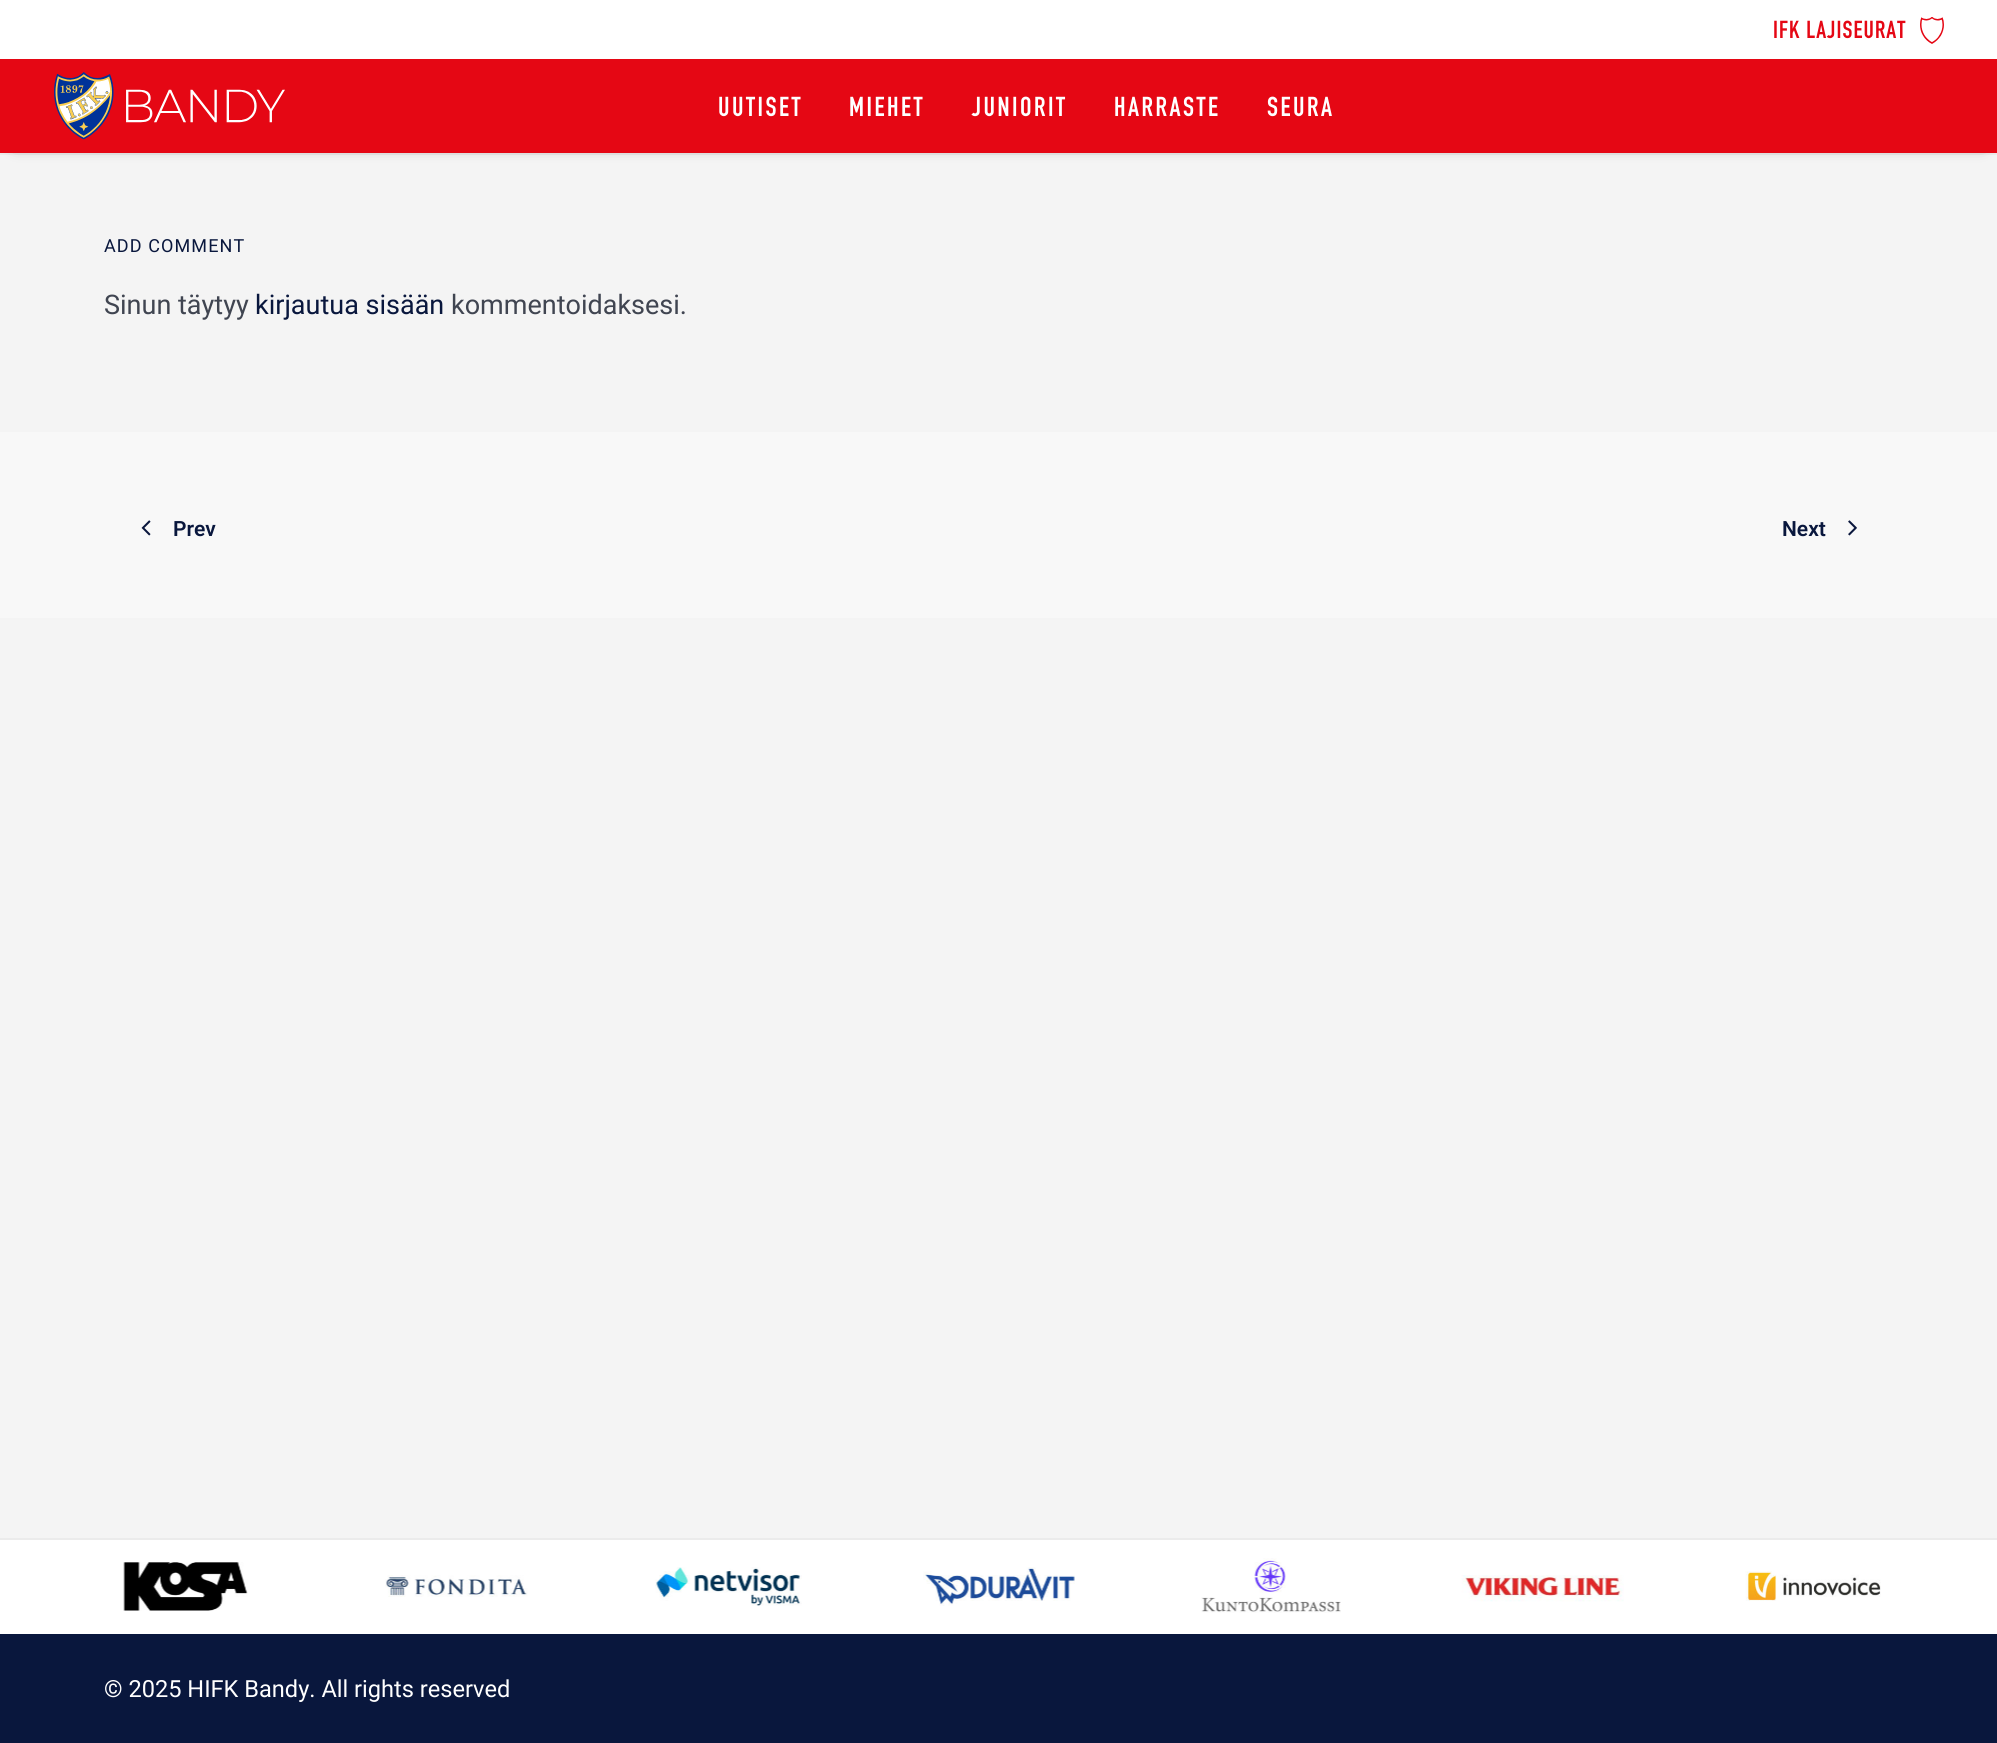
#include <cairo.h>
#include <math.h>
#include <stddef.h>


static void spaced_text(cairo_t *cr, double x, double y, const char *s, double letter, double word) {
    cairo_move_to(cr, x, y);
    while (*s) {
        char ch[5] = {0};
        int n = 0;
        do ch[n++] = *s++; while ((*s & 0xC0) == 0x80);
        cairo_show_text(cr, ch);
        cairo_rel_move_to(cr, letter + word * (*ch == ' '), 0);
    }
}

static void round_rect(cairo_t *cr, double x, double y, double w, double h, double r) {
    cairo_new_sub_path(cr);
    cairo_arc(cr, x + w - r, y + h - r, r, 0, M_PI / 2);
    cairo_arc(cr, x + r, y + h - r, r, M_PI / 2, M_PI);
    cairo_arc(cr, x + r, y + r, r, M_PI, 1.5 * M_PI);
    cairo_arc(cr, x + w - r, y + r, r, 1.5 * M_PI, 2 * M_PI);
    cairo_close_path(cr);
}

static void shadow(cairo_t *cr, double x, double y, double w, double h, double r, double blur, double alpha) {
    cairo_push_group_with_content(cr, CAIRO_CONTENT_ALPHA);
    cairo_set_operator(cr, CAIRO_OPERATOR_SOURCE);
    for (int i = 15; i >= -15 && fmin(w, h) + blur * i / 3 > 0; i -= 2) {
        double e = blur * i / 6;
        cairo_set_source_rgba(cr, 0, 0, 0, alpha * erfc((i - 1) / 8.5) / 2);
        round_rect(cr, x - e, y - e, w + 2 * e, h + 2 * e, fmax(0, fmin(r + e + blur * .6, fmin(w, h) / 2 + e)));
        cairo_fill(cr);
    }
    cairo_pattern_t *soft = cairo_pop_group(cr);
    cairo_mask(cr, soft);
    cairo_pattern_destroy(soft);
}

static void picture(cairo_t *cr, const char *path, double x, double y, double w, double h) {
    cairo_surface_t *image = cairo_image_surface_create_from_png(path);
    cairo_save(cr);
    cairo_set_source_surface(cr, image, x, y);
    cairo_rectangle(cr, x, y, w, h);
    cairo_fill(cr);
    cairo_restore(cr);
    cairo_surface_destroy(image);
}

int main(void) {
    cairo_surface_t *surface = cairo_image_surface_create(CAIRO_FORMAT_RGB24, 1997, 1743);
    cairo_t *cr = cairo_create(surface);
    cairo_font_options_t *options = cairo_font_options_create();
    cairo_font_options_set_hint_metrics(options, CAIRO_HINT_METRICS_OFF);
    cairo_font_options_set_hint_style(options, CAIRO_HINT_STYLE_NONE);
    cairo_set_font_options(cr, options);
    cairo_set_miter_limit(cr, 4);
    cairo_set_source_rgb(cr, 1, 1, 1);
    cairo_paint(cr);
    picture(cr, "img1.png", 1920, 17, 24, 27);
    cairo_select_font_face(cr, "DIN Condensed", CAIRO_FONT_SLANT_NORMAL, CAIRO_FONT_WEIGHT_BOLD);
    cairo_set_font_size(cr, 24.25);
    cairo_set_source_rgb(cr, 0.898, 0.031, 0.082);
    spaced_text(cr, 1773, 38, "IFK LAJISEURAT", 1.1, 0);
    cairo_set_source_rgb(cr, 0.957, 0.957, 0.957);
    cairo_rectangle(cr, 0, 155, 1997, 1383);
    cairo_fill(cr);
    cairo_set_source_rgb(cr, 0.918, 0.918, 0.918);
    cairo_rectangle(cr, 0, 153, 1997, 2);
    cairo_fill(cr);
    cairo_set_source_rgb(cr, 0, 0, 0);
    shadow(cr, 15, 80, 1968, 64, 0, 7.5, 0.6);
    cairo_set_source_rgb(cr, 0.898, 0.031, 0.082);
    cairo_rectangle(cr, 0, 59, 1997, 94);
    cairo_fill(cr);
    picture(cr, "img2.png", 54, 72, 231, 68);
    cairo_set_font_size(cr, 27);
    cairo_set_source_rgb(cr, 1, 1, 1);
    spaced_text(cr, 718, 116, "UUTISET", 2.5, 0);
    spaced_text(cr, 849, 116, "MIEHET", 2.5, 0);
    spaced_text(cr, 972, 116, "JUNIORIT", 2.5, 0);
    spaced_text(cr, 1114, 116, "HARRASTE", 2.5, 0);
    spaced_text(cr, 1267, 116, "SEURA", 2.5, 0);
    cairo_select_font_face(cr, "Roboto", CAIRO_FONT_SLANT_NORMAL, CAIRO_FONT_WEIGHT_NORMAL);
    cairo_set_font_size(cr, 18);
    cairo_set_source_rgb(cr, 0.039, 0.09, 0.239);
    spaced_text(cr, 104, 252, "ADD COMMENT", 1.1, 0);
    cairo_set_font_size(cr, 27);
    cairo_set_source_rgb(cr, 0.251, 0.271, 0.318);
    cairo_move_to(cr, 104, 314);
    cairo_show_text(cr, "Sinun täytyy");
    cairo_set_source_rgb(cr, 0.039, 0.09, 0.239);
    cairo_move_to(cr, 255, 314);
    cairo_show_text(cr, "kirjautua sisään");
    cairo_set_source_rgb(cr, 0.251, 0.271, 0.318);
    cairo_move_to(cr, 451, 314);
    cairo_show_text(cr, "kommentoidaksesi.");
    cairo_set_source_rgb(cr, 0.969, 0.969, 0.969);
    cairo_rectangle(cr, 0, 432, 1997, 186);
    cairo_fill(cr);
    picture(cr, "img3.png", 141, 520, 10, 16);
    cairo_select_font_face(cr, "Roboto SemiBold", CAIRO_FONT_SLANT_NORMAL, CAIRO_FONT_WEIGHT_NORMAL);
    cairo_set_font_size(cr, 21);
    cairo_set_source_rgb(cr, 0.039, 0.09, 0.239);
    cairo_move_to(cr, 173, 536);
    cairo_show_text(cr, "Prev");
    cairo_move_to(cr, 1782, 536);
    cairo_show_text(cr, "Next");
    picture(cr, "img4.png", 1848, 520, 9, 16);
    cairo_set_source_rgb(cr, 0.918, 0.918, 0.918);
    cairo_rectangle(cr, 0, 1538, 1997, 2);
    cairo_fill(cr);
    picture(cr, "img5.png", 123, 1562, 125, 49);
    picture(cr, "img6.png", 385, 1575, 143, 22);
    picture(cr, "img7.png", 655, 1567, 147, 39);
    picture(cr, "img8.png", 923, 1567, 152, 39);
    picture(cr, "img9.png", 1201, 1558, 140, 55);
    picture(cr, "img10.png", 1461, 1575, 163, 27);
    picture(cr, "img11.png", 1745, 1571, 136, 30);
    cairo_set_source_rgb(cr, 0.039, 0.09, 0.239);
    cairo_rectangle(cr, 0, 1634, 1997, 109);
    cairo_fill(cr);
    cairo_select_font_face(cr, "Roboto", CAIRO_FONT_SLANT_NORMAL, CAIRO_FONT_WEIGHT_NORMAL);
    cairo_set_font_size(cr, 23.6);
    cairo_set_source_rgb(cr, 1, 1, 1);
    cairo_move_to(cr, 104, 1697);
    cairo_show_text(cr, "© 2025 HIFK Bandy. All rights reserved");
    cairo_surface_write_to_png(surface, "page.png");
    cairo_font_options_destroy(options);
    cairo_destroy(cr);
    cairo_surface_destroy(surface);
    return 0;
}
